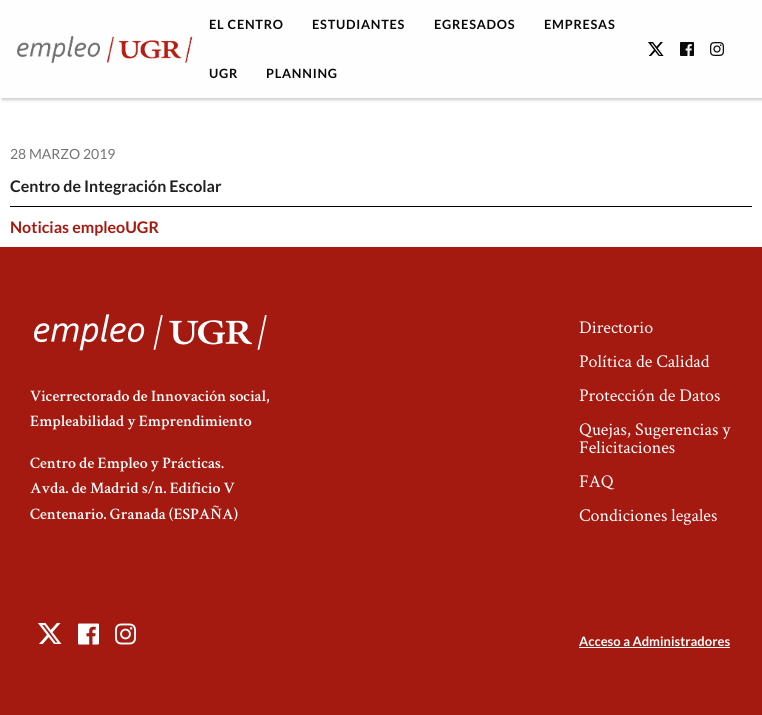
#include <cairo.h>
#include <math.h>
#include <stddef.h>


static void spaced_text(cairo_t *cr, double x, double y, const char *s, double letter, double word) {
    cairo_move_to(cr, x, y);
    while (*s) {
        char ch[5] = {0};
        int n = 0;
        do ch[n++] = *s++; while ((*s & 0xC0) == 0x80);
        cairo_show_text(cr, ch);
        cairo_rel_move_to(cr, letter + word * (*ch == ' '), 0);
    }
}

static void round_rect(cairo_t *cr, double x, double y, double w, double h, double r) {
    cairo_new_sub_path(cr);
    cairo_arc(cr, x + w - r, y + h - r, r, 0, M_PI / 2);
    cairo_arc(cr, x + r, y + h - r, r, M_PI / 2, M_PI);
    cairo_arc(cr, x + r, y + r, r, M_PI, 1.5 * M_PI);
    cairo_arc(cr, x + w - r, y + r, r, 1.5 * M_PI, 2 * M_PI);
    cairo_close_path(cr);
}

static void shadow(cairo_t *cr, double x, double y, double w, double h, double r, double blur, double alpha) {
    cairo_push_group_with_content(cr, CAIRO_CONTENT_ALPHA);
    cairo_set_operator(cr, CAIRO_OPERATOR_SOURCE);
    for (int i = 15; i >= -15 && fmin(w, h) + blur * i / 3 > 0; i -= 2) {
        double e = blur * i / 6;
        cairo_set_source_rgba(cr, 0, 0, 0, alpha * erfc((i - 1) / 8.5) / 2);
        round_rect(cr, x - e, y - e, w + 2 * e, h + 2 * e, fmax(0, fmin(r + e + blur * .6, fmin(w, h) / 2 + e)));
        cairo_fill(cr);
    }
    cairo_pattern_t *soft = cairo_pop_group(cr);
    cairo_mask(cr, soft);
    cairo_pattern_destroy(soft);
}

static void picture(cairo_t *cr, const char *path, double x, double y, double w, double h) {
    cairo_surface_t *image = cairo_image_surface_create_from_png(path);
    cairo_save(cr);
    cairo_set_source_surface(cr, image, x, y);
    cairo_rectangle(cr, x, y, w, h);
    cairo_fill(cr);
    cairo_restore(cr);
    cairo_surface_destroy(image);
}

int main(void) {
    cairo_surface_t *surface = cairo_image_surface_create(CAIRO_FORMAT_RGB24, 762, 715);
    cairo_t *cr = cairo_create(surface);
    cairo_font_options_t *options = cairo_font_options_create();
    cairo_font_options_set_hint_metrics(options, CAIRO_HINT_METRICS_OFF);
    cairo_font_options_set_hint_style(options, CAIRO_HINT_STYLE_NONE);
    cairo_set_font_options(cr, options);
    cairo_set_miter_limit(cr, 4);
    cairo_set_source_rgb(cr, 1, 1, 1);
    cairo_paint(cr);
    cairo_set_source_rgb(cr, 0, 0, 0);
    shadow(cr, 2, 2, 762, 98, 0, 1.5, 0.2);
    cairo_set_source_rgb(cr, 0.996, 0.996, 0.996);
    cairo_rectangle(cr, 0, 0, 762, 98);
    cairo_fill(cr);
    picture(cr, "img1.png", 17, 36, 176, 28);
    cairo_select_font_face(cr, "Lato", CAIRO_FONT_SLANT_NORMAL, CAIRO_FONT_WEIGHT_BOLD);
    cairo_set_font_size(cr, 12.75);
    cairo_set_source_rgb(cr, 0.039, 0.039, 0.039);
    spaced_text(cr, 209, 29, "EL CENTRO", 0.75, 0);
    spaced_text(cr, 312, 29, "ESTUDIANTES", 0.75, 0);
    spaced_text(cr, 434, 29, "EGRESADOS", 0.75, 0);
    spaced_text(cr, 544, 29, "EMPRESAS", 0.75, 0);
    spaced_text(cr, 209, 78, "UGR", 0.75, 0);
    spaced_text(cr, 266, 78, "PLANNING", 0.75, 0);
    picture(cr, "img2.png", 648, 42, 16, 14);
    picture(cr, "img3.png", 680, 42, 14, 14);
    picture(cr, "img4.png", 710, 42, 14, 14);
    cairo_select_font_face(cr, "Lato", CAIRO_FONT_SLANT_NORMAL, CAIRO_FONT_WEIGHT_NORMAL);
    cairo_set_font_size(cr, 14);
    cairo_set_source_rgb(cr, 0.459, 0.459, 0.459);
    cairo_move_to(cr, 10, 159);
    cairo_show_text(cr, "28 MARZO 2019");
    cairo_select_font_face(cr, "Lato", CAIRO_FONT_SLANT_NORMAL, CAIRO_FONT_WEIGHT_BOLD);
    cairo_set_font_size(cr, 16);
    cairo_set_source_rgb(cr, 0.129, 0.129, 0.129);
    cairo_move_to(cr, 10, 192);
    cairo_show_text(cr, "Centro de Integración Escolar");
    cairo_set_source_rgb(cr, 0, 0, 0);
    cairo_rectangle(cr, 10, 206, 742, 1);
    cairo_fill(cr);
    cairo_set_source_rgb(cr, 0.643, 0.098, 0.063);
    cairo_move_to(cr, 10, 233);
    cairo_show_text(cr, "Noticias empleoUGR");
    cairo_rectangle(cr, 0, 247, 762, 468);
    cairo_fill(cr);
    picture(cr, "img5.png", 34, 314, 233, 37);
    cairo_select_font_face(cr, "Crimson Text SemiBold", CAIRO_FONT_SLANT_NORMAL, CAIRO_FONT_WEIGHT_NORMAL);
    cairo_set_source_rgb(cr, 0.996, 0.996, 0.996);
    cairo_move_to(cr, 30, 401);
    cairo_show_text(cr, "Vicerrectorado de Innovación social,");
    cairo_move_to(cr, 30, 426);
    cairo_show_text(cr, "Empleabilidad y Emprendimiento");
    cairo_move_to(cr, 30, 468);
    cairo_show_text(cr, "Centro de Empleo y Prácticas.");
    cairo_move_to(cr, 30, 493);
    cairo_show_text(cr, "Avda. de Madrid s/n. Edificio V");
    cairo_move_to(cr, 30, 519);
    cairo_show_text(cr, "Centenario. Granada (ESPAÑA)");
    cairo_select_font_face(cr, "Crimson Text", CAIRO_FONT_SLANT_NORMAL, CAIRO_FONT_WEIGHT_NORMAL);
    cairo_set_font_size(cr, 18);
    cairo_move_to(cr, 579, 333);
    cairo_show_text(cr, "Directorio");
    cairo_move_to(cr, 579, 367);
    cairo_show_text(cr, "Política de Calidad");
    cairo_move_to(cr, 579, 401);
    cairo_show_text(cr, "Protección de Datos");
    cairo_move_to(cr, 579, 435);
    cairo_show_text(cr, "Quejas, Sugerencias y");
    cairo_move_to(cr, 579, 453);
    cairo_show_text(cr, "Felicitaciones");
    cairo_move_to(cr, 579, 487);
    cairo_show_text(cr, "FAQ");
    cairo_move_to(cr, 579, 521);
    cairo_show_text(cr, "Condiciones legales");
    picture(cr, "img6.png", 38, 623, 24, 21);
    picture(cr, "img7.png", 78, 623, 21, 22);
    picture(cr, "img8.png", 115, 623, 21, 22);
    cairo_select_font_face(cr, "Lato", CAIRO_FONT_SLANT_NORMAL, CAIRO_FONT_WEIGHT_BOLD);
    cairo_set_font_size(cr, 13);
    cairo_move_to(cr, 579, 646);
    cairo_show_text(cr, "Acceso a Administradores");
    cairo_set_source_rgb(cr, 1, 1, 1);
    cairo_rectangle(cr, 579, 647, 151, 1);
    cairo_fill(cr);
    cairo_surface_write_to_png(surface, "page.png");
    cairo_font_options_destroy(options);
    cairo_destroy(cr);
    cairo_surface_destroy(surface);
    return 0;
}
